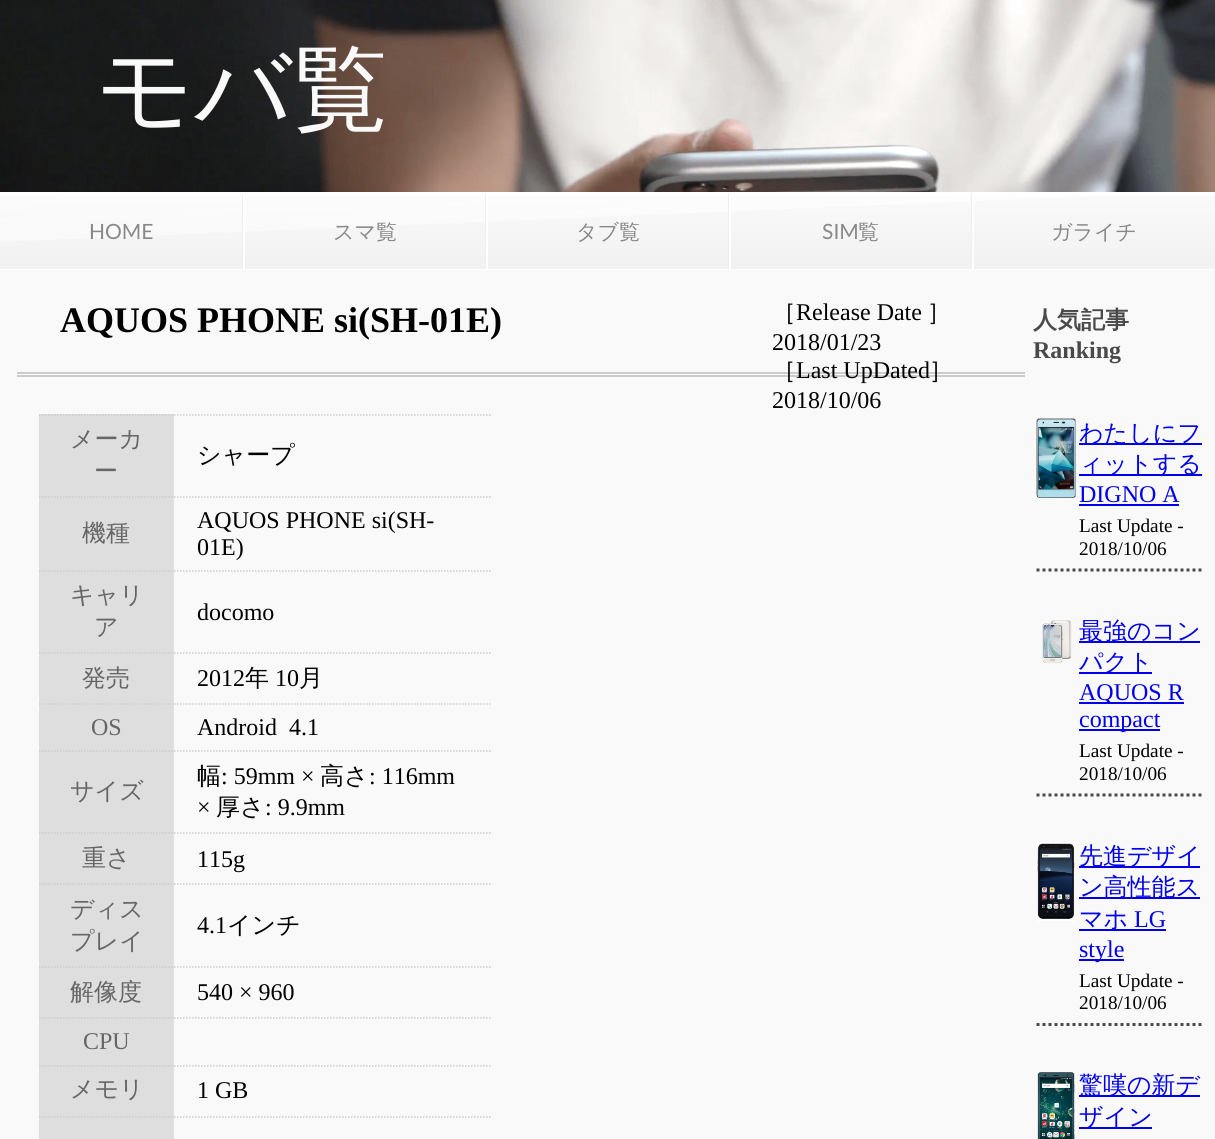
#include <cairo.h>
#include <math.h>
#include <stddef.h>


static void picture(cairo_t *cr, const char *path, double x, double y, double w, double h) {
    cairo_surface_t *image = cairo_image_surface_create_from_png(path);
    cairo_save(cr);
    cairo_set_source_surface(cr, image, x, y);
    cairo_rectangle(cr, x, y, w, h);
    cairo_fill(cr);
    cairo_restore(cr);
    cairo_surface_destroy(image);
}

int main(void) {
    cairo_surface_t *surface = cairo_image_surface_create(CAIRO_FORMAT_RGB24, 1215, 1139);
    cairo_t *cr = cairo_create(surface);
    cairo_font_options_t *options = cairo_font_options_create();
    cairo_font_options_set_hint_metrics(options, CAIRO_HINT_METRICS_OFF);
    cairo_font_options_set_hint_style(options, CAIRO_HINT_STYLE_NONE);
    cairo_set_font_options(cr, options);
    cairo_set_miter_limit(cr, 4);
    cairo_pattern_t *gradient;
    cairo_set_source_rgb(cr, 0.973, 0.973, 0.973);
    cairo_paint(cr);
    picture(cr, "img1.png", 0, 0, 1215, 192);
    cairo_select_font_face(cr, "WenQuanYi Zen Hei Medium", CAIRO_FONT_SLANT_NORMAL, CAIRO_FONT_WEIGHT_NORMAL);
    cairo_set_font_size(cr, 96);
    cairo_set_source_rgb(cr, 0.973, 0.973, 0.973);
    cairo_move_to(cr, 96, 122);
    cairo_show_text(cr, "モバ覧");
    cairo_rectangle(cr, 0, 193, 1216, 76);
    cairo_set_source_rgb(cr, 1, 1, 1);
    cairo_stroke(cr);
    gradient = cairo_pattern_create_linear(608, 193, 608, 269);
    cairo_pattern_add_color_stop_rgba(gradient, 0, 0.98, 0.98, 0.98, 1);
    cairo_pattern_add_color_stop_rgba(gradient, 1, 0.945, 0.945, 0.945, 1);
    cairo_set_source(cr, gradient);
    cairo_pattern_destroy(gradient);
    cairo_rectangle(cr, 0, 196, 1215, 73);
    cairo_fill(cr);
    cairo_set_source_rgb(cr, 1, 1, 1);
    cairo_rectangle(cr, 0, 194, 1215, 2);
    cairo_fill(cr);
    cairo_save(cr);
    cairo_rectangle(cr, 0, 194, 1215, 75);
    cairo_clip(cr);
    gradient = cairo_pattern_create_linear(648, 112, 660, 249);
    cairo_pattern_add_color_stop_rgba(gradient, 0, 1, 1, 1, 0.1);
    cairo_pattern_add_color_stop_rgba(gradient, 1, 1, 1, 1, 0.7);
    cairo_set_source(cr, gradient);
    cairo_pattern_destroy(gradient);
    cairo_new_path(cr);
    cairo_move_to(cr, -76, 176);
    cairo_line_to(cr, 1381, 115);
    cairo_line_to(cr, 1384, 184);
    cairo_line_to(cr, -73, 245);
    cairo_close_path(cr);
    cairo_fill(cr);
    cairo_restore(cr);
    cairo_set_source_rgb(cr, 0.933, 0.933, 0.933);
    cairo_rectangle(cr, 242, 194, 1, 75);
    cairo_fill(cr);
    cairo_select_font_face(cr, "Lato", CAIRO_FONT_SLANT_NORMAL, CAIRO_FONT_WEIGHT_NORMAL);
    cairo_set_font_size(cr, 21);
    cairo_set_source_rgb(cr, 0.533, 0.533, 0.533);
    cairo_move_to(cr, 89, 239);
    cairo_show_text(cr, "HOME");
    cairo_set_source_rgb(cr, 0.933, 0.933, 0.933);
    cairo_rectangle(cr, 485, 194, 1, 75);
    cairo_fill(cr);
    cairo_set_source_rgb(cr, 1, 1, 1);
    cairo_rectangle(cr, 243, 194, 2, 75);
    cairo_fill(cr);
    cairo_select_font_face(cr, "WenQuanYi Zen Hei Medium", CAIRO_FONT_SLANT_NORMAL, CAIRO_FONT_WEIGHT_NORMAL);
    cairo_set_source_rgb(cr, 0.533, 0.533, 0.533);
    cairo_move_to(cr, 333, 239);
    cairo_show_text(cr, "スマ覧");
    cairo_set_source_rgb(cr, 0.933, 0.933, 0.933);
    cairo_rectangle(cr, 728, 194, 1, 75);
    cairo_fill(cr);
    cairo_set_source_rgb(cr, 1, 1, 1);
    cairo_rectangle(cr, 486, 194, 2, 75);
    cairo_fill(cr);
    cairo_set_source_rgb(cr, 0.533, 0.533, 0.533);
    cairo_move_to(cr, 576, 239);
    cairo_show_text(cr, "タブ覧");
    cairo_set_source_rgb(cr, 0.933, 0.933, 0.933);
    cairo_rectangle(cr, 971, 194, 1, 75);
    cairo_fill(cr);
    cairo_set_source_rgb(cr, 1, 1, 1);
    cairo_rectangle(cr, 729, 194, 2, 75);
    cairo_fill(cr);
    cairo_select_font_face(cr, "Lato", CAIRO_FONT_SLANT_NORMAL, CAIRO_FONT_WEIGHT_NORMAL);
    cairo_set_source_rgb(cr, 0.533, 0.533, 0.533);
    cairo_move_to(cr, 822, 239);
    cairo_show_text(cr, "SIM");
    cairo_select_font_face(cr, "WenQuanYi Zen Hei Medium", CAIRO_FONT_SLANT_NORMAL, CAIRO_FONT_WEIGHT_NORMAL);
    cairo_move_to(cr, 858, 239);
    cairo_show_text(cr, "覧");
    cairo_set_source_rgb(cr, 1, 1, 1);
    cairo_rectangle(cr, 972, 194, 2, 75);
    cairo_fill(cr);
    cairo_set_source_rgb(cr, 0.533, 0.533, 0.533);
    cairo_move_to(cr, 1051, 239);
    cairo_show_text(cr, "ガライチ");
    cairo_set_source_rgb(cr, 0.8, 0.8, 0.8);
    cairo_rectangle(cr, 17, 372, 1008, 2);
    cairo_fill(cr);
    cairo_rectangle(cr, 17, 375, 1008, 2);
    cairo_fill(cr);
    cairo_select_font_face(cr, "Liberation Serif", CAIRO_FONT_SLANT_NORMAL, CAIRO_FONT_WEIGHT_BOLD);
    cairo_set_font_size(cr, 36);
    cairo_set_source_rgb(cr, 0, 0, 0);
    cairo_move_to(cr, 60, 332);
    cairo_show_text(cr, "AQUOS PHONE si(SH-01E)");
    cairo_select_font_face(cr, "WenQuanYi Zen Hei Medium", CAIRO_FONT_SLANT_NORMAL, CAIRO_FONT_WEIGHT_NORMAL);
    cairo_set_font_size(cr, 24);
    cairo_move_to(cr, 772, 320);
    cairo_show_text(cr, "［");
    cairo_select_font_face(cr, "Liberation Serif", CAIRO_FONT_SLANT_NORMAL, CAIRO_FONT_WEIGHT_NORMAL);
    cairo_move_to(cr, 796, 320);
    cairo_show_text(cr, "Release Date");
    cairo_select_font_face(cr, "WenQuanYi Zen Hei Medium", CAIRO_FONT_SLANT_NORMAL, CAIRO_FONT_WEIGHT_NORMAL);
    cairo_move_to(cr, 927, 320);
    cairo_show_text(cr, "］");
    cairo_select_font_face(cr, "Liberation Serif", CAIRO_FONT_SLANT_NORMAL, CAIRO_FONT_WEIGHT_NORMAL);
    cairo_move_to(cr, 772, 350);
    cairo_show_text(cr, "2018/01/23");
    cairo_select_font_face(cr, "WenQuanYi Zen Hei Medium", CAIRO_FONT_SLANT_NORMAL, CAIRO_FONT_WEIGHT_NORMAL);
    cairo_move_to(cr, 772, 378);
    cairo_show_text(cr, "［");
    cairo_select_font_face(cr, "Liberation Serif", CAIRO_FONT_SLANT_NORMAL, CAIRO_FONT_WEIGHT_NORMAL);
    cairo_move_to(cr, 796, 378);
    cairo_show_text(cr, "Last UpDated");
    cairo_select_font_face(cr, "WenQuanYi Zen Hei Medium", CAIRO_FONT_SLANT_NORMAL, CAIRO_FONT_WEIGHT_NORMAL);
    cairo_move_to(cr, 929, 378);
    cairo_show_text(cr, "］");
    cairo_select_font_face(cr, "Liberation Serif", CAIRO_FONT_SLANT_NORMAL, CAIRO_FONT_WEIGHT_NORMAL);
    cairo_move_to(cr, 772, 408);
    cairo_show_text(cr, "2018/10/06");
    cairo_set_source_rgb(cr, 0.871, 0.871, 0.871);
    cairo_rectangle(cr, 39, 414, 135, 725);
    cairo_fill(cr);
    cairo_new_path(cr);
    cairo_move_to(cr, 39, 415);
    cairo_line_to(cr, 174, 415);
    cairo_set_source_rgb(cr, 0.8, 0.8, 0.8);
    cairo_set_line_width(cr, 1.5);
    cairo_set_dash(cr, (double[]){1.5, 1.5}, 2, 0);
    cairo_stroke(cr);
    cairo_select_font_face(cr, "WenQuanYi Zen Hei Medium", CAIRO_FONT_SLANT_NORMAL, CAIRO_FONT_WEIGHT_NORMAL);
    cairo_set_source_rgb(cr, 0.4, 0.4, 0.4);
    cairo_move_to(cr, 70, 447);
    cairo_show_text(cr, "メーカ");
    cairo_move_to(cr, 94, 479);
    cairo_show_text(cr, "ー");
    cairo_new_path(cr);
    cairo_move_to(cr, 174, 415);
    cairo_line_to(cr, 490.5, 415);
    cairo_set_source_rgb(cr, 0.8, 0.8, 0.8);
    cairo_stroke(cr);
    cairo_set_source_rgb(cr, 0, 0, 0);
    cairo_move_to(cr, 197, 463);
    cairo_show_text(cr, "シャープ");
    cairo_new_path(cr);
    cairo_move_to(cr, 39, 497);
    cairo_line_to(cr, 174, 497);
    cairo_set_source_rgb(cr, 0.8, 0.8, 0.8);
    cairo_stroke(cr);
    cairo_set_source_rgb(cr, 0.4, 0.4, 0.4);
    cairo_move_to(cr, 82, 541);
    cairo_show_text(cr, "機種");
    cairo_new_path(cr);
    cairo_move_to(cr, 174, 497);
    cairo_line_to(cr, 490.5, 497);
    cairo_set_source_rgb(cr, 0.8, 0.8, 0.8);
    cairo_stroke(cr);
    cairo_select_font_face(cr, "Liberation Serif", CAIRO_FONT_SLANT_NORMAL, CAIRO_FONT_WEIGHT_NORMAL);
    cairo_set_source_rgb(cr, 0, 0, 0);
    cairo_move_to(cr, 197, 528);
    cairo_show_text(cr, "AQUOS PHONE si(SH-");
    cairo_move_to(cr, 197, 555);
    cairo_show_text(cr, "01E)");
    cairo_new_path(cr);
    cairo_move_to(cr, 39, 571);
    cairo_line_to(cr, 174, 571);
    cairo_set_source_rgb(cr, 0.8, 0.8, 0.8);
    cairo_stroke(cr);
    cairo_select_font_face(cr, "WenQuanYi Zen Hei Medium", CAIRO_FONT_SLANT_NORMAL, CAIRO_FONT_WEIGHT_NORMAL);
    cairo_set_source_rgb(cr, 0.4, 0.4, 0.4);
    cairo_move_to(cr, 70, 603);
    cairo_show_text(cr, "キャリ");
    cairo_move_to(cr, 94, 635);
    cairo_show_text(cr, "ア");
    cairo_new_path(cr);
    cairo_move_to(cr, 174, 571);
    cairo_line_to(cr, 490.5, 571);
    cairo_set_source_rgb(cr, 0.8, 0.8, 0.8);
    cairo_stroke(cr);
    cairo_select_font_face(cr, "Liberation Serif", CAIRO_FONT_SLANT_NORMAL, CAIRO_FONT_WEIGHT_NORMAL);
    cairo_set_source_rgb(cr, 0, 0, 0);
    cairo_move_to(cr, 197, 620);
    cairo_show_text(cr, "docomo");
    cairo_new_path(cr);
    cairo_move_to(cr, 39, 653);
    cairo_line_to(cr, 174, 653);
    cairo_set_source_rgb(cr, 0.8, 0.8, 0.8);
    cairo_stroke(cr);
    cairo_select_font_face(cr, "WenQuanYi Zen Hei Medium", CAIRO_FONT_SLANT_NORMAL, CAIRO_FONT_WEIGHT_NORMAL);
    cairo_set_source_rgb(cr, 0.4, 0.4, 0.4);
    cairo_move_to(cr, 82, 686);
    cairo_show_text(cr, "発売");
    cairo_new_path(cr);
    cairo_move_to(cr, 174, 653);
    cairo_line_to(cr, 490.5, 653);
    cairo_set_source_rgb(cr, 0.8, 0.8, 0.8);
    cairo_stroke(cr);
    cairo_select_font_face(cr, "Liberation Serif", CAIRO_FONT_SLANT_NORMAL, CAIRO_FONT_WEIGHT_NORMAL);
    cairo_set_source_rgb(cr, 0, 0, 0);
    cairo_move_to(cr, 197, 686);
    cairo_show_text(cr, "2012");
    cairo_select_font_face(cr, "WenQuanYi Zen Hei Medium", CAIRO_FONT_SLANT_NORMAL, CAIRO_FONT_WEIGHT_NORMAL);
    cairo_move_to(cr, 245, 686);
    cairo_show_text(cr, "年");
    cairo_select_font_face(cr, "Liberation Serif", CAIRO_FONT_SLANT_NORMAL, CAIRO_FONT_WEIGHT_NORMAL);
    cairo_move_to(cr, 275, 686);
    cairo_show_text(cr, "10");
    cairo_select_font_face(cr, "WenQuanYi Zen Hei Medium", CAIRO_FONT_SLANT_NORMAL, CAIRO_FONT_WEIGHT_NORMAL);
    cairo_move_to(cr, 299, 686);
    cairo_show_text(cr, "月");
    cairo_new_path(cr);
    cairo_move_to(cr, 39, 704);
    cairo_line_to(cr, 174, 704);
    cairo_set_source_rgb(cr, 0.8, 0.8, 0.8);
    cairo_stroke(cr);
    cairo_select_font_face(cr, "Liberation Serif", CAIRO_FONT_SLANT_NORMAL, CAIRO_FONT_WEIGHT_NORMAL);
    cairo_set_source_rgb(cr, 0.4, 0.4, 0.4);
    cairo_move_to(cr, 91, 735);
    cairo_show_text(cr, "OS");
    cairo_new_path(cr);
    cairo_move_to(cr, 174, 704);
    cairo_line_to(cr, 490.5, 704);
    cairo_set_source_rgb(cr, 0.8, 0.8, 0.8);
    cairo_stroke(cr);
    cairo_set_source_rgb(cr, 0, 0, 0);
    cairo_move_to(cr, 197, 735);
    cairo_show_text(cr, "Android  4.1");
    cairo_new_path(cr);
    cairo_move_to(cr, 39, 751);
    cairo_line_to(cr, 174, 751);
    cairo_set_source_rgb(cr, 0.8, 0.8, 0.8);
    cairo_stroke(cr);
    cairo_select_font_face(cr, "WenQuanYi Zen Hei Medium", CAIRO_FONT_SLANT_NORMAL, CAIRO_FONT_WEIGHT_NORMAL);
    cairo_set_source_rgb(cr, 0.4, 0.4, 0.4);
    cairo_move_to(cr, 70, 799);
    cairo_show_text(cr, "サイズ");
    cairo_new_path(cr);
    cairo_move_to(cr, 174, 751);
    cairo_line_to(cr, 490.5, 751);
    cairo_set_source_rgb(cr, 0.8, 0.8, 0.8);
    cairo_stroke(cr);
    cairo_set_source_rgb(cr, 0, 0, 0);
    cairo_move_to(cr, 197, 784);
    cairo_show_text(cr, "幅");
    cairo_select_font_face(cr, "Liberation Serif", CAIRO_FONT_SLANT_NORMAL, CAIRO_FONT_WEIGHT_NORMAL);
    cairo_move_to(cr, 221, 784);
    cairo_show_text(cr, ": 59mm ×");
    cairo_select_font_face(cr, "WenQuanYi Zen Hei Medium", CAIRO_FONT_SLANT_NORMAL, CAIRO_FONT_WEIGHT_NORMAL);
    cairo_move_to(cr, 320, 784);
    cairo_show_text(cr, "高さ");
    cairo_select_font_face(cr, "Liberation Serif", CAIRO_FONT_SLANT_NORMAL, CAIRO_FONT_WEIGHT_NORMAL);
    cairo_move_to(cr, 369, 784);
    cairo_show_text(cr, ": 116mm");
    cairo_move_to(cr, 197, 815);
    cairo_show_text(cr, "×");
    cairo_select_font_face(cr, "WenQuanYi Zen Hei Medium", CAIRO_FONT_SLANT_NORMAL, CAIRO_FONT_WEIGHT_NORMAL);
    cairo_move_to(cr, 216, 815);
    cairo_show_text(cr, "厚さ");
    cairo_select_font_face(cr, "Liberation Serif", CAIRO_FONT_SLANT_NORMAL, CAIRO_FONT_WEIGHT_NORMAL);
    cairo_move_to(cr, 265, 815);
    cairo_show_text(cr, ": 9.9mm");
    cairo_new_path(cr);
    cairo_move_to(cr, 39, 833);
    cairo_line_to(cr, 174, 833);
    cairo_set_source_rgb(cr, 0.8, 0.8, 0.8);
    cairo_stroke(cr);
    cairo_select_font_face(cr, "WenQuanYi Zen Hei Medium", CAIRO_FONT_SLANT_NORMAL, CAIRO_FONT_WEIGHT_NORMAL);
    cairo_set_source_rgb(cr, 0.4, 0.4, 0.4);
    cairo_move_to(cr, 82, 866);
    cairo_show_text(cr, "重さ");
    cairo_new_path(cr);
    cairo_move_to(cr, 174, 833);
    cairo_line_to(cr, 490.5, 833);
    cairo_set_source_rgb(cr, 0.8, 0.8, 0.8);
    cairo_stroke(cr);
    cairo_select_font_face(cr, "Liberation Serif", CAIRO_FONT_SLANT_NORMAL, CAIRO_FONT_WEIGHT_NORMAL);
    cairo_set_source_rgb(cr, 0, 0, 0);
    cairo_move_to(cr, 197, 867);
    cairo_show_text(cr, "115g");
    cairo_new_path(cr);
    cairo_move_to(cr, 39, 884);
    cairo_line_to(cr, 174, 884);
    cairo_set_source_rgb(cr, 0.8, 0.8, 0.8);
    cairo_stroke(cr);
    cairo_select_font_face(cr, "WenQuanYi Zen Hei Medium", CAIRO_FONT_SLANT_NORMAL, CAIRO_FONT_WEIGHT_NORMAL);
    cairo_set_source_rgb(cr, 0.4, 0.4, 0.4);
    cairo_move_to(cr, 70, 917);
    cairo_show_text(cr, "ディス");
    cairo_move_to(cr, 70, 949);
    cairo_show_text(cr, "プレイ");
    cairo_new_path(cr);
    cairo_move_to(cr, 174, 884);
    cairo_line_to(cr, 490.5, 884);
    cairo_set_source_rgb(cr, 0.8, 0.8, 0.8);
    cairo_stroke(cr);
    cairo_select_font_face(cr, "Liberation Serif", CAIRO_FONT_SLANT_NORMAL, CAIRO_FONT_WEIGHT_NORMAL);
    cairo_set_source_rgb(cr, 0, 0, 0);
    cairo_move_to(cr, 197, 933);
    cairo_show_text(cr, "4.1");
    cairo_select_font_face(cr, "WenQuanYi Zen Hei Medium", CAIRO_FONT_SLANT_NORMAL, CAIRO_FONT_WEIGHT_NORMAL);
    cairo_move_to(cr, 227, 933);
    cairo_show_text(cr, "インチ");
    cairo_new_path(cr);
    cairo_move_to(cr, 39, 967);
    cairo_line_to(cr, 174, 967);
    cairo_set_source_rgb(cr, 0.8, 0.8, 0.8);
    cairo_stroke(cr);
    cairo_set_source_rgb(cr, 0.4, 0.4, 0.4);
    cairo_move_to(cr, 70, 1000);
    cairo_show_text(cr, "解像度");
    cairo_new_path(cr);
    cairo_move_to(cr, 174, 967);
    cairo_line_to(cr, 490.5, 967);
    cairo_set_source_rgb(cr, 0.8, 0.8, 0.8);
    cairo_stroke(cr);
    cairo_select_font_face(cr, "Liberation Serif", CAIRO_FONT_SLANT_NORMAL, CAIRO_FONT_WEIGHT_NORMAL);
    cairo_set_source_rgb(cr, 0, 0, 0);
    cairo_move_to(cr, 197, 1000);
    cairo_show_text(cr, "540 × 960");
    cairo_new_path(cr);
    cairo_move_to(cr, 174, 1018);
    cairo_line_to(cr, 490.5, 1018);
    cairo_set_source_rgb(cr, 0.8, 0.8, 0.8);
    cairo_stroke(cr);
    cairo_new_path(cr);
    cairo_move_to(cr, 39, 1018);
    cairo_line_to(cr, 174, 1018);
    cairo_stroke(cr);
    cairo_set_source_rgb(cr, 0.4, 0.4, 0.4);
    cairo_move_to(cr, 83, 1049);
    cairo_show_text(cr, "CPU");
    cairo_new_path(cr);
    cairo_move_to(cr, 39, 1066);
    cairo_line_to(cr, 174, 1066);
    cairo_set_source_rgb(cr, 0.8, 0.8, 0.8);
    cairo_stroke(cr);
    cairo_select_font_face(cr, "WenQuanYi Zen Hei Medium", CAIRO_FONT_SLANT_NORMAL, CAIRO_FONT_WEIGHT_NORMAL);
    cairo_set_source_rgb(cr, 0.4, 0.4, 0.4);
    cairo_move_to(cr, 70, 1097);
    cairo_show_text(cr, "メモリ");
    cairo_new_path(cr);
    cairo_move_to(cr, 174, 1066);
    cairo_line_to(cr, 490.5, 1066);
    cairo_set_source_rgb(cr, 0.8, 0.8, 0.8);
    cairo_stroke(cr);
    cairo_select_font_face(cr, "Liberation Serif", CAIRO_FONT_SLANT_NORMAL, CAIRO_FONT_WEIGHT_NORMAL);
    cairo_set_source_rgb(cr, 0, 0, 0);
    cairo_move_to(cr, 197, 1098);
    cairo_show_text(cr, "1 GB");
    cairo_new_path(cr);
    cairo_move_to(cr, 39, 1117);
    cairo_line_to(cr, 174, 1117);
    cairo_set_source_rgb(cr, 0.8, 0.8, 0.8);
    cairo_stroke(cr);
    cairo_new_path(cr);
    cairo_move_to(cr, 174, 1117);
    cairo_line_to(cr, 490.5, 1117);
    cairo_stroke(cr);
    cairo_select_font_face(cr, "WenQuanYi Zen Hei", CAIRO_FONT_SLANT_NORMAL, CAIRO_FONT_WEIGHT_BOLD);
    cairo_set_source_rgb(cr, 0.29, 0.29, 0.29);
    cairo_move_to(cr, 1033, 328);
    cairo_show_text(cr, "人気記事");
    cairo_select_font_face(cr, "Liberation Serif", CAIRO_FONT_SLANT_NORMAL, CAIRO_FONT_WEIGHT_BOLD);
    cairo_move_to(cr, 1033, 358);
    cairo_show_text(cr, "Ranking");
    cairo_new_path(cr);
    cairo_move_to(cr, 1036.5, 570);
    cairo_line_to(cr, 1203, 570);
    cairo_set_line_width(cr, 3);
    cairo_set_dash(cr, (double[]){3, 3}, 2, 0);
    cairo_stroke(cr);
    picture(cr, "img2.png", 1036, 418, 40, 80);
    cairo_set_source_rgb(cr, 0, 0, 0.933);
    cairo_rectangle(cr, 1079, 443, 123, 2);
    cairo_fill(cr);
    cairo_select_font_face(cr, "WenQuanYi Zen Hei Medium", CAIRO_FONT_SLANT_NORMAL, CAIRO_FONT_WEIGHT_NORMAL);
    cairo_move_to(cr, 1079, 441);
    cairo_show_text(cr, "わたしにフ");
    cairo_rectangle(cr, 1079, 474, 123, 2);
    cairo_fill(cr);
    cairo_move_to(cr, 1079, 472);
    cairo_show_text(cr, "ィットする");
    cairo_select_font_face(cr, "Liberation Serif", CAIRO_FONT_SLANT_NORMAL, CAIRO_FONT_WEIGHT_NORMAL);
    cairo_move_to(cr, 1079, 502);
    cairo_show_text(cr, "DIGNO A");
    cairo_rectangle(cr, 1079, 504, 100, 2);
    cairo_fill(cr);
    cairo_set_font_size(cr, 19.25);
    cairo_set_source_rgb(cr, 0, 0, 0);
    cairo_move_to(cr, 1079, 532);
    cairo_show_text(cr, "Last Update -");
    cairo_move_to(cr, 1079, 555);
    cairo_show_text(cr, "2018/10/06");
    cairo_new_path(cr);
    cairo_move_to(cr, 1036.5, 795);
    cairo_line_to(cr, 1203, 795);
    cairo_set_source_rgb(cr, 0.29, 0.29, 0.29);
    cairo_stroke(cr);
    picture(cr, "img3.png", 1042, 620, 30, 43);
    cairo_set_source_rgb(cr, 0, 0, 0.933);
    cairo_rectangle(cr, 1079, 641, 121, 2);
    cairo_fill(cr);
    cairo_select_font_face(cr, "WenQuanYi Zen Hei Medium", CAIRO_FONT_SLANT_NORMAL, CAIRO_FONT_WEIGHT_NORMAL);
    cairo_set_font_size(cr, 24);
    cairo_move_to(cr, 1079, 639);
    cairo_show_text(cr, "最強のコン");
    cairo_rectangle(cr, 1079, 672, 73, 2);
    cairo_fill(cr);
    cairo_move_to(cr, 1079, 670);
    cairo_show_text(cr, "パクト");
    cairo_rectangle(cr, 1079, 702, 105, 2);
    cairo_fill(cr);
    cairo_select_font_face(cr, "Liberation Serif", CAIRO_FONT_SLANT_NORMAL, CAIRO_FONT_WEIGHT_NORMAL);
    cairo_move_to(cr, 1079, 700);
    cairo_show_text(cr, "AQUOS R");
    cairo_rectangle(cr, 1079, 729, 81, 2);
    cairo_fill(cr);
    cairo_move_to(cr, 1079, 727);
    cairo_show_text(cr, "compact");
    cairo_set_font_size(cr, 19.25);
    cairo_set_source_rgb(cr, 0, 0, 0);
    cairo_move_to(cr, 1079, 757);
    cairo_show_text(cr, "Last Update -");
    cairo_move_to(cr, 1079, 780);
    cairo_show_text(cr, "2018/10/06");
    cairo_new_path(cr);
    cairo_move_to(cr, 1036.5, 1024.5);
    cairo_line_to(cr, 1203, 1024.5);
    cairo_set_source_rgb(cr, 0.29, 0.29, 0.29);
    cairo_stroke(cr);
    picture(cr, "img4.png", 1037, 842, 38, 79);
    cairo_set_source_rgb(cr, 0, 0, 0.933);
    cairo_rectangle(cr, 1079, 866, 121, 2);
    cairo_fill(cr);
    cairo_select_font_face(cr, "WenQuanYi Zen Hei Medium", CAIRO_FONT_SLANT_NORMAL, CAIRO_FONT_WEIGHT_NORMAL);
    cairo_set_font_size(cr, 24);
    cairo_move_to(cr, 1079, 864);
    cairo_show_text(cr, "先進デザイ");
    cairo_rectangle(cr, 1079, 897, 121, 2);
    cairo_fill(cr);
    cairo_move_to(cr, 1079, 895);
    cairo_show_text(cr, "ン高性能ス");
    cairo_rectangle(cr, 1079, 929, 87, 2);
    cairo_fill(cr);
    cairo_move_to(cr, 1079, 927);
    cairo_show_text(cr, "マホ");
    cairo_select_font_face(cr, "Liberation Serif", CAIRO_FONT_SLANT_NORMAL, CAIRO_FONT_WEIGHT_NORMAL);
    cairo_move_to(cr, 1134, 927);
    cairo_show_text(cr, "LG");
    cairo_rectangle(cr, 1079, 959, 45, 2);
    cairo_fill(cr);
    cairo_move_to(cr, 1079, 957);
    cairo_show_text(cr, "style");
    cairo_set_font_size(cr, 19.25);
    cairo_set_source_rgb(cr, 0, 0, 0);
    cairo_move_to(cr, 1079, 987);
    cairo_show_text(cr, "Last Update -");
    cairo_move_to(cr, 1079, 1009);
    cairo_show_text(cr, "2018/10/06");
    picture(cr, "img5.png", 1037, 1072, 38, 67);
    cairo_set_source_rgb(cr, 0, 0, 0.933);
    cairo_rectangle(cr, 1079, 1095, 121, 2);
    cairo_fill(cr);
    cairo_select_font_face(cr, "WenQuanYi Zen Hei Medium", CAIRO_FONT_SLANT_NORMAL, CAIRO_FONT_WEIGHT_NORMAL);
    cairo_set_font_size(cr, 24);
    cairo_move_to(cr, 1079, 1093);
    cairo_show_text(cr, "驚嘆の新デ");
    cairo_rectangle(cr, 1079, 1127, 73, 2);
    cairo_fill(cr);
    cairo_move_to(cr, 1079, 1125);
    cairo_show_text(cr, "ザイン");
    cairo_surface_write_to_png(surface, "page.png");
    cairo_font_options_destroy(options);
    cairo_destroy(cr);
    cairo_surface_destroy(surface);
    return 0;
}
